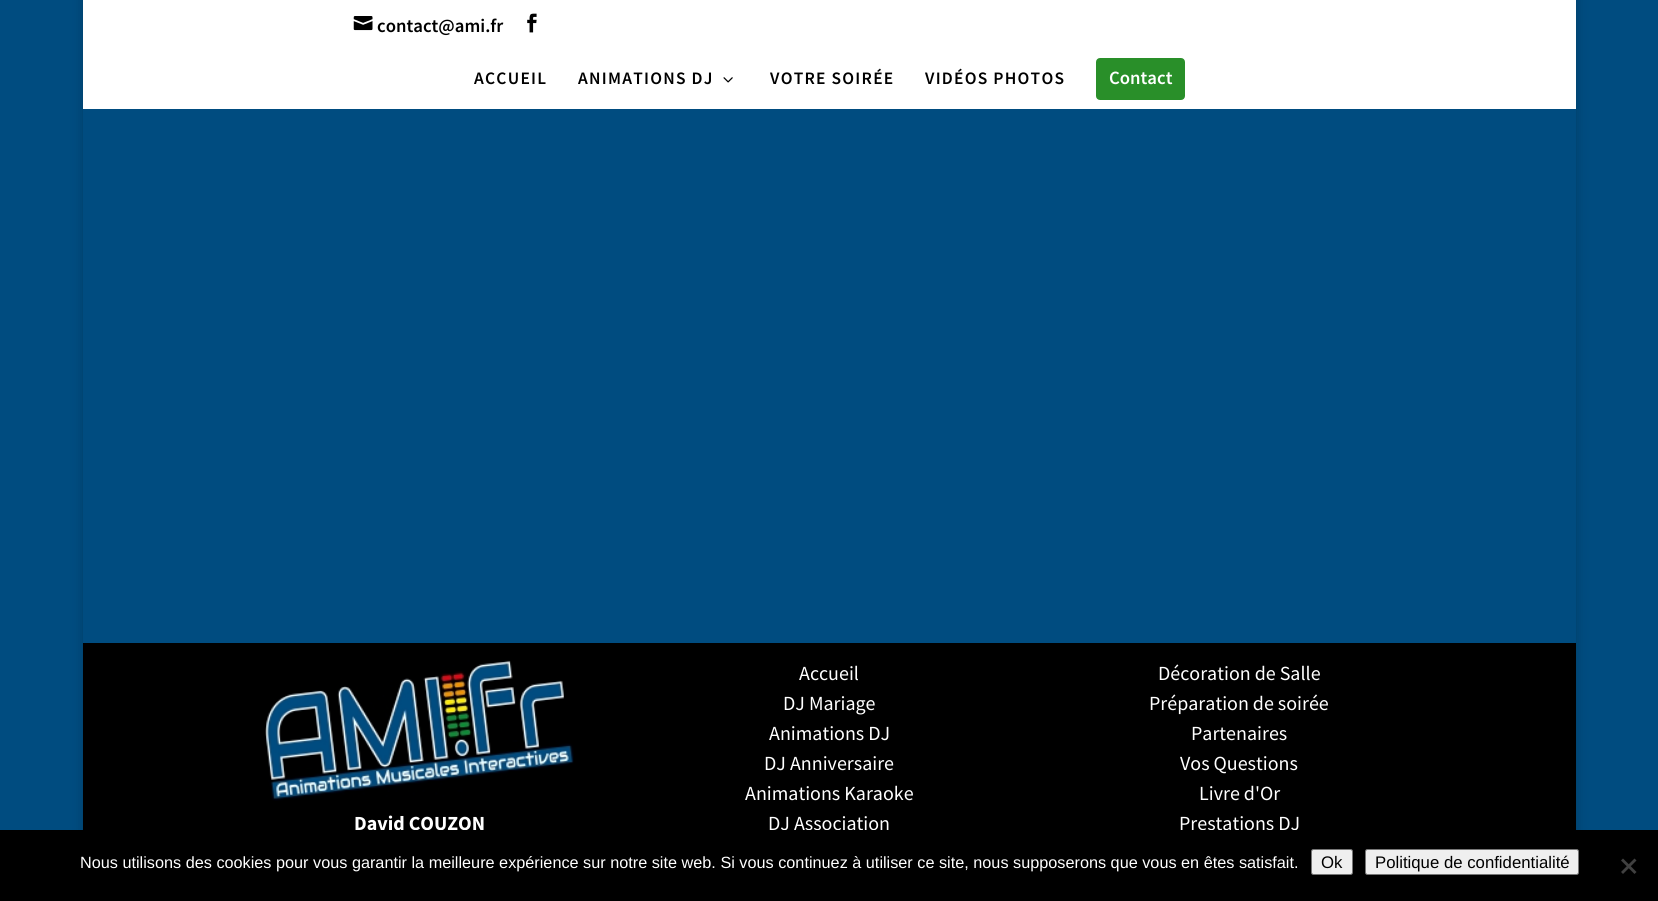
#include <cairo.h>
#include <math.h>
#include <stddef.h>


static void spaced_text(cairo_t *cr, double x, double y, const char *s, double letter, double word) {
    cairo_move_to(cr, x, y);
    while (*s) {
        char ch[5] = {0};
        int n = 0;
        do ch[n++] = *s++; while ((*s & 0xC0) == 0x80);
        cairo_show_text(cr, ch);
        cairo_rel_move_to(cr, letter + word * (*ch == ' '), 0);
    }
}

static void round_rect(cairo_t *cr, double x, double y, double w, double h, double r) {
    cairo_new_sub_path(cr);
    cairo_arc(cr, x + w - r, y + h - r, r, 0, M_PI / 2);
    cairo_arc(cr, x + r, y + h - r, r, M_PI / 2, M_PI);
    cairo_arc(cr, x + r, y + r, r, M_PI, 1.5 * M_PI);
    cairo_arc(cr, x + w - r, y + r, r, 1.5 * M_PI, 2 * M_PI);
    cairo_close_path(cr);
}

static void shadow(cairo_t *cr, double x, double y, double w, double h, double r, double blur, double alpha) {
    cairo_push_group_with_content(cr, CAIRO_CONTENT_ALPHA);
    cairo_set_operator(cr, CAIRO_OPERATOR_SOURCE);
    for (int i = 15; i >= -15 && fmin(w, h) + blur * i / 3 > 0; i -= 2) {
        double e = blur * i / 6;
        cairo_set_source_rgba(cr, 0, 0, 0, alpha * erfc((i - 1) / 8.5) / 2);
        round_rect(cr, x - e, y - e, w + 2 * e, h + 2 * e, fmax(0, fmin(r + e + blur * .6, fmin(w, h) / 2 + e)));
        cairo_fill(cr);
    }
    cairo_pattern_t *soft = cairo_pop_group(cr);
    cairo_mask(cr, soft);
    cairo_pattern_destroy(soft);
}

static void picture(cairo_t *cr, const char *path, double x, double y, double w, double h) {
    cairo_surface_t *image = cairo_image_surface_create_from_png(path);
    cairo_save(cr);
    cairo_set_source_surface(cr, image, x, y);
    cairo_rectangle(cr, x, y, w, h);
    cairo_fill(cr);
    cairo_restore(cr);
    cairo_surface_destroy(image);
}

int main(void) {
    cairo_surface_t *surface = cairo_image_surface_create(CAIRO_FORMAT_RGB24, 1658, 901);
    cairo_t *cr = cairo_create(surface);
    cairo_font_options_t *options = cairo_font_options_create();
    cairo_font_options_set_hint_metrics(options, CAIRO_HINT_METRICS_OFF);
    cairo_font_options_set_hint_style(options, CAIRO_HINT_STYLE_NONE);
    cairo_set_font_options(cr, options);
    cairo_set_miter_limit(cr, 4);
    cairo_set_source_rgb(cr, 0, 0.298, 0.502);
    cairo_paint(cr);
    cairo_save(cr);
    cairo_set_fill_rule(cr, CAIRO_FILL_RULE_EVEN_ODD);
    cairo_new_path(cr);
    cairo_move_to(cr, 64, 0);
    cairo_line_to(cr, 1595, 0);
    cairo_line_to(cr, 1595, 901);
    cairo_line_to(cr, 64, 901);
    cairo_close_path(cr);
    cairo_move_to(cr, 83, -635);
    cairo_line_to(cr, 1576, -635);
    cairo_line_to(cr, 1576, 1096);
    cairo_line_to(cr, 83, 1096);
    cairo_close_path(cr);
    cairo_clip(cr);
    cairo_set_source_rgb(cr, 0, 0, 0);
    shadow(cr, 83, -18, 1493, 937, 0, 6, 0.2);
    cairo_restore(cr);
    cairo_set_source_rgb(cr, 1, 1, 1);
    cairo_rectangle(cr, 83, 0, 1493, 109);
    cairo_fill(cr);
    picture(cr, "img1.png", 353, 16, 20, 15);
    cairo_select_font_face(cr, "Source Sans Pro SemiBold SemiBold", CAIRO_FONT_SLANT_NORMAL, CAIRO_FONT_WEIGHT_NORMAL);
    cairo_set_font_size(cr, 18.75);
    cairo_set_source_rgb(cr, 0, 0, 0);
    cairo_move_to(cr, 377, 32);
    cairo_show_text(cr, "contact@ami.fr");
    picture(cr, "img2.png", 527, 13, 10, 20);
    cairo_set_font_size(cr, 17.5);
    spaced_text(cr, 474, 84, "ACCUEIL", 1.25, 0);
    spaced_text(cr, 578, 84, "ANIMATIONS DJ", 1.25, 0);
    picture(cr, "img3.png", 723, 77, 10, 6);
    spaced_text(cr, 770, 84, "VOTRE SOIRÉE", 1.25, 0);
    spaced_text(cr, 925, 84, "VIDÉOS PHOTOS", 1.25, 0);
    cairo_set_source_rgb(cr, 0.161, 0.561, 0.161);
    round_rect(cr, 1097.5, 59.5, 86, 39, 2.5);
    cairo_fill_preserve(cr);
    cairo_set_line_width(cr, 3);
    cairo_stroke(cr);
    cairo_set_font_size(cr, 18.75);
    cairo_set_source_rgb(cr, 1, 1, 1);
    cairo_move_to(cr, 1109, 84);
    cairo_show_text(cr, "Contact");
    cairo_set_source_rgb(cr, 0, 0, 0);
    cairo_rectangle(cr, 83, 643, 1493, 187);
    cairo_fill(cr);
    picture(cr, "img4.png", 265, 660, 309, 141);
    cairo_select_font_face(cr, "Source Sans Pro", CAIRO_FONT_SLANT_NORMAL, CAIRO_FONT_WEIGHT_BOLD);
    cairo_set_font_size(cr, 20);
    cairo_set_source_rgb(cr, 1, 1, 1);
    cairo_move_to(cr, 354, 830);
    cairo_show_text(cr, "David COUZON");
    cairo_select_font_face(cr, "Source Sans Pro", CAIRO_FONT_SLANT_NORMAL, CAIRO_FONT_WEIGHT_NORMAL);
    cairo_move_to(cr, 799, 680);
    cairo_show_text(cr, "Accueil");
    cairo_move_to(cr, 783, 710);
    cairo_show_text(cr, "DJ Mariage");
    cairo_move_to(cr, 769, 740);
    cairo_show_text(cr, "Animations DJ");
    cairo_move_to(cr, 764, 770);
    cairo_show_text(cr, "DJ Anniversaire");
    cairo_move_to(cr, 745, 800);
    cairo_show_text(cr, "Animations Karaoke");
    cairo_move_to(cr, 768, 830);
    cairo_show_text(cr, "DJ Association");
    cairo_move_to(cr, 1158, 680);
    cairo_show_text(cr, "Décoration de Salle");
    cairo_move_to(cr, 1149, 710);
    cairo_show_text(cr, "Préparation de soirée");
    cairo_move_to(cr, 1191, 740);
    cairo_show_text(cr, "Partenaires");
    cairo_move_to(cr, 1180, 770);
    cairo_show_text(cr, "Vos Questions");
    cairo_move_to(cr, 1199, 800);
    cairo_show_text(cr, "Livre d'Or");
    cairo_move_to(cr, 1179, 830);
    cairo_show_text(cr, "Prestations DJ");
    cairo_set_source_rgb(cr, 0, 0, 0);
    cairo_rectangle(cr, 0, 830, 1658, 71);
    cairo_fill(cr);
    cairo_select_font_face(cr, "Liberation Sans", CAIRO_FONT_SLANT_NORMAL, CAIRO_FONT_WEIGHT_NORMAL);
    cairo_set_font_size(cr, 16.25);
    cairo_set_source_rgb(cr, 1, 1, 1);
    cairo_move_to(cr, 80, 868);
    cairo_show_text(cr, "Nous utilisons des cookies pour vous garantir la meilleure expérience sur notre site web. Si vous continuez à utiliser ce site, nous supposerons que vous en êtes satisfait.");
    cairo_set_source_rgb(cr, 0.937, 0.937, 0.937);
    round_rect(cr, 1311.5, 849.5, 41, 25, 2);
    cairo_fill_preserve(cr);
    cairo_set_source_rgb(cr, 0.463, 0.463, 0.463);
    cairo_set_line_width(cr, 1);
    cairo_stroke(cr);
    cairo_set_font_size(cr, 16.75);
    cairo_set_source_rgb(cr, 0, 0, 0);
    cairo_move_to(cr, 1321, 868);
    cairo_show_text(cr, "Ok");
    cairo_set_source_rgb(cr, 0.937, 0.937, 0.937);
    round_rect(cr, 1365.5, 849.5, 213, 25, 2);
    cairo_fill_preserve(cr);
    cairo_set_source_rgb(cr, 0.463, 0.463, 0.463);
    cairo_stroke(cr);
    cairo_set_source_rgb(cr, 0, 0, 0);
    cairo_move_to(cr, 1375, 868);
    cairo_show_text(cr, "Politique de confidentialité");
    cairo_set_source_rgb(cr, 0.251, 0.251, 0.251);
    cairo_new_path(cr);
    cairo_move_to(cr, 1634.5, 858.5);
    cairo_line_to(cr, 1636.5, 860.5);
    cairo_line_to(cr, 1623, 874);
    cairo_line_to(cr, 1621, 872);
    cairo_close_path(cr);
    cairo_fill(cr);
    cairo_new_path(cr);
    cairo_move_to(cr, 1621, 860.5);
    cairo_line_to(cr, 1623, 858.5);
    cairo_line_to(cr, 1636.5, 872);
    cairo_line_to(cr, 1634.5, 874);
    cairo_close_path(cr);
    cairo_fill(cr);
    cairo_surface_write_to_png(surface, "page.png");
    cairo_font_options_destroy(options);
    cairo_destroy(cr);
    cairo_surface_destroy(surface);
    return 0;
}
